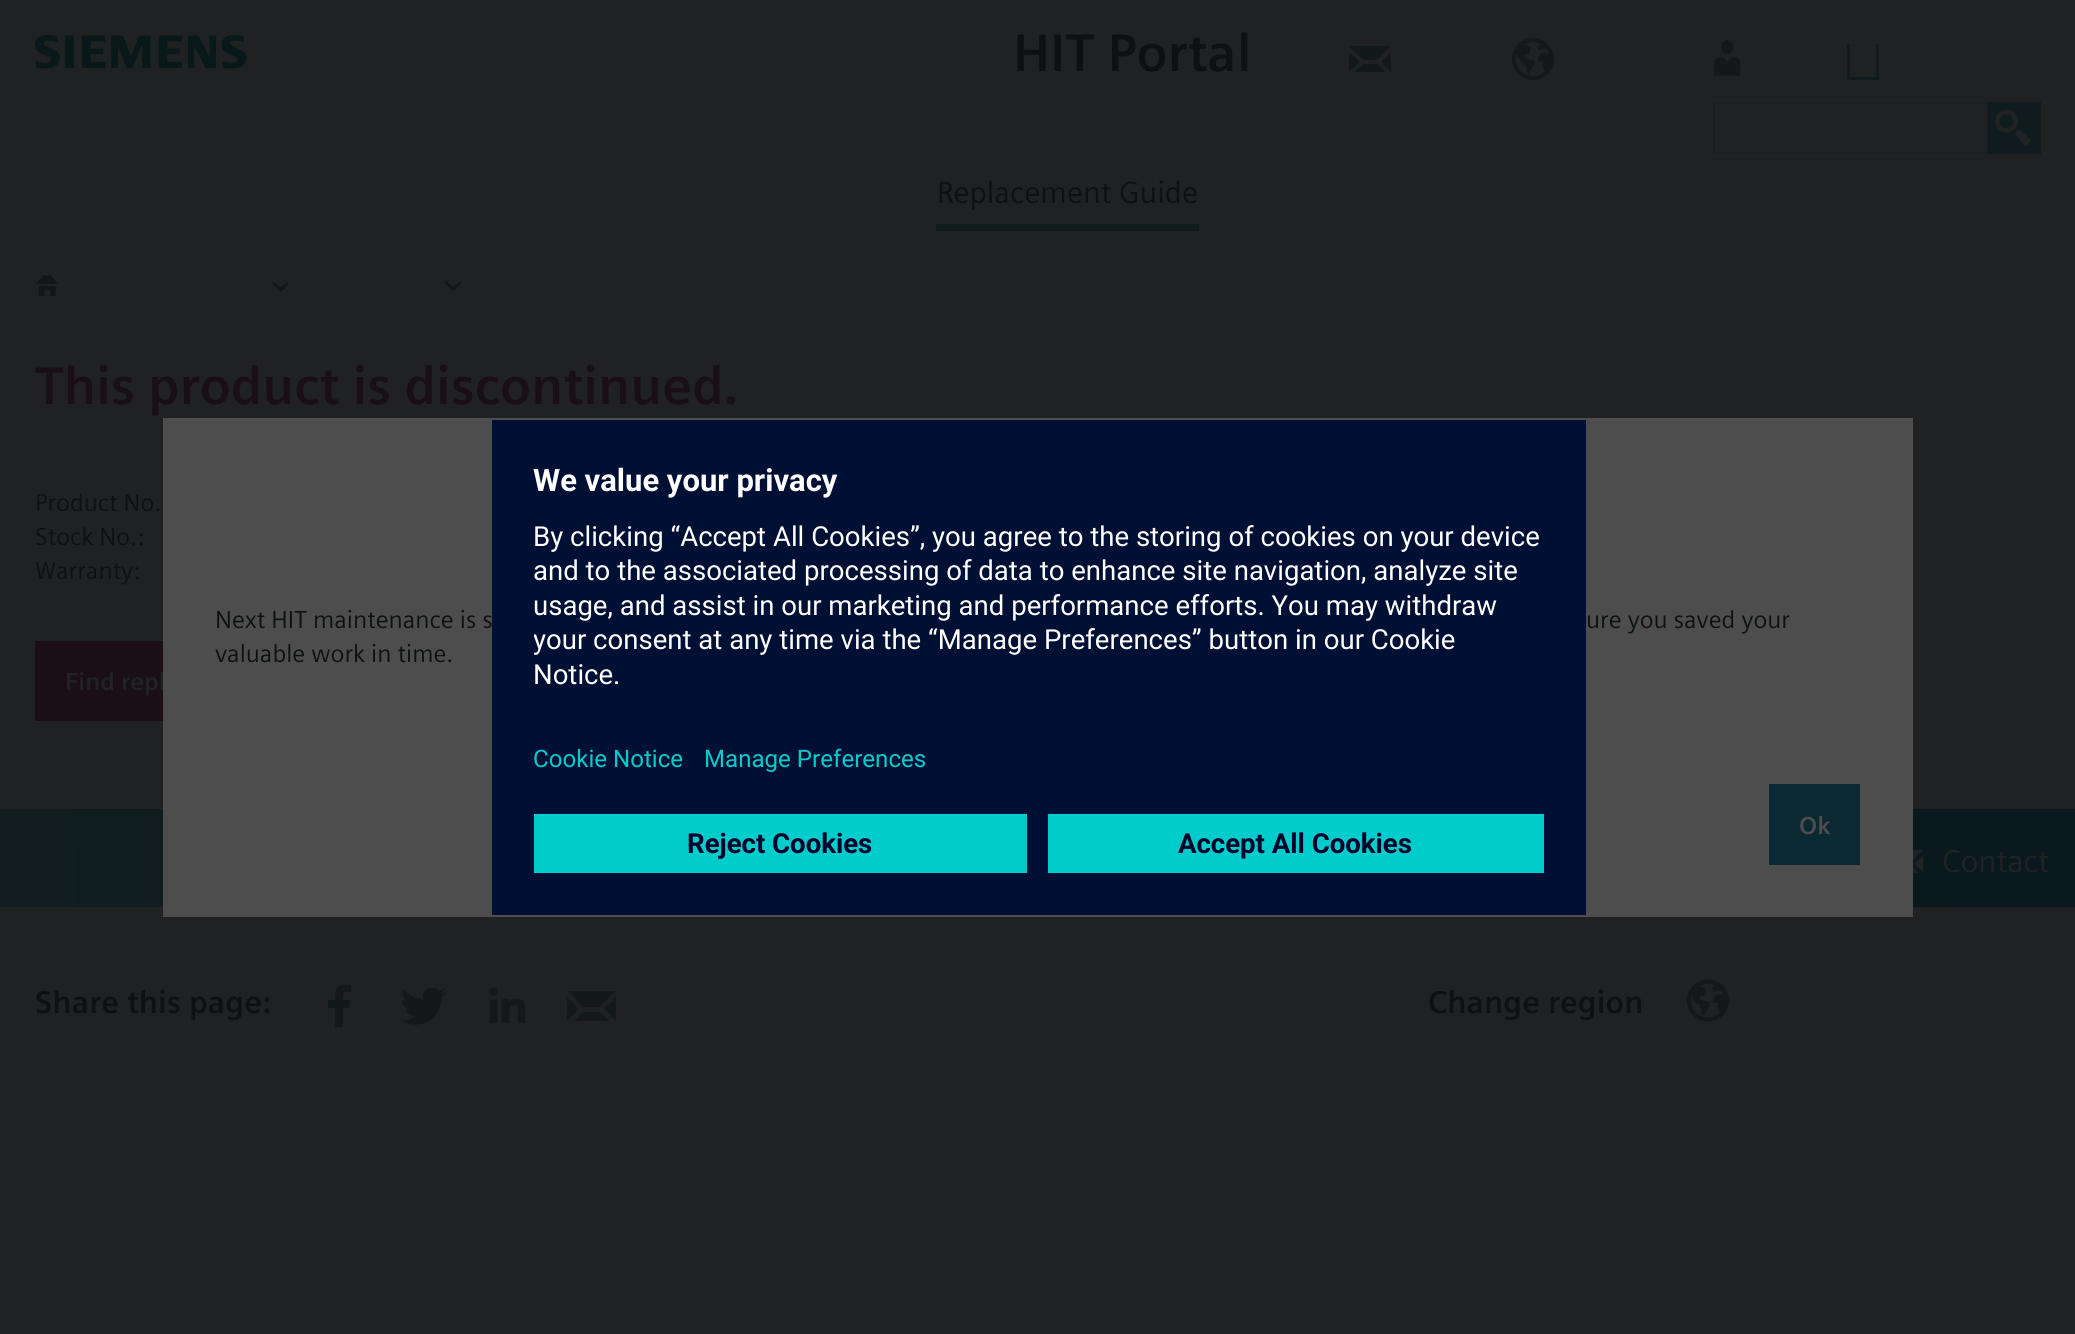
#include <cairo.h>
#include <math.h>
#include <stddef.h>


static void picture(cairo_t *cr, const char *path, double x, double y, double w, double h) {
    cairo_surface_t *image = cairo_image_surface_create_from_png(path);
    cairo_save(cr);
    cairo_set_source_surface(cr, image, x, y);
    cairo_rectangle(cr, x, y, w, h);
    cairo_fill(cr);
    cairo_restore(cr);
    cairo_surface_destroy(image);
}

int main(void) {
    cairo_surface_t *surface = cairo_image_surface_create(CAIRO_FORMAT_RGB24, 2075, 1334);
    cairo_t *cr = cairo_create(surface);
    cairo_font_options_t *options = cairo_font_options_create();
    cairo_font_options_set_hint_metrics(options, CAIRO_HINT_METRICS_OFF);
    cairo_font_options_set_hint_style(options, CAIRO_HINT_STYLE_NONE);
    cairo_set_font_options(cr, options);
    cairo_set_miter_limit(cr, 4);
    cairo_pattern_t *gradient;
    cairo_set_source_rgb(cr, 0.122, 0.129, 0.137);
    cairo_paint(cr);
    picture(cr, "img1.png", 35, 35, 212, 34);
    cairo_select_font_face(cr, "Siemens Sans", CAIRO_FONT_SLANT_NORMAL, CAIRO_FONT_WEIGHT_BOLD);
    cairo_set_font_size(cr, 52.75);
    cairo_set_source_rgb(cr, 0.055, 0.067, 0.071);
    cairo_move_to(cr, 1013, 71);
    cairo_show_text(cr, "HIT Portal");
    cairo_set_source_rgb(cr, 0.078, 0.094, 0.102);
    cairo_new_path(cr);
    cairo_move_to(cr, 1377, 60);
    cairo_line_to(cr, 1391, 46);
    cairo_line_to(cr, 1349, 46);
    cairo_line_to(cr, 1363, 60);
    cairo_close_path(cr);
    cairo_move_to(cr, 1349, 52);
    cairo_line_to(cr, 1349, 72);
    cairo_line_to(cr, 1360, 62);
    cairo_close_path(cr);
    cairo_move_to(cr, 1363, 64);
    cairo_line_to(cr, 1355, 72);
    cairo_line_to(cr, 1386, 72);
    cairo_line_to(cr, 1377, 64);
    cairo_close_path(cr);
    cairo_move_to(cr, 1391, 72);
    cairo_line_to(cr, 1391, 52);
    cairo_line_to(cr, 1381, 62);
    cairo_close_path(cr);
    cairo_fill(cr);
    picture(cr, "img2.png", 1512, 38, 42, 43);
    picture(cr, "img3.png", 1714, 40, 27, 36);
    cairo_set_source_rgb(cr, 0.059, 0.106, 0.11);
    cairo_rectangle(cr, 1876, 44, 3, 37);
    cairo_fill(cr);
    cairo_rectangle(cr, 1846, 77, 34, 3);
    cairo_fill(cr);
    cairo_rectangle(cr, 1847, 44, 3, 37);
    cairo_fill(cr);
    cairo_rectangle(cr, 1846, 43, 34, 38);
    cairo_set_source_rgb(cr, 0.125, 0.137, 0.141);
    cairo_stroke(cr);
    cairo_rectangle(cr, 1714, 103, 273, 50);
    cairo_set_source_rgb(cr, 0.11, 0.122, 0.129);
    cairo_stroke(cr);
    cairo_set_source_rgb(cr, 0.059, 0.106, 0.11);
    cairo_rectangle(cr, 1988, 102, 53, 52);
    cairo_fill(cr);
    picture(cr, "img4.png", 1995, 109, 37, 38);
    cairo_rectangle(cr, 936, 224, 263, 7);
    cairo_fill(cr);
    cairo_select_font_face(cr, "Siemens Sans", CAIRO_FONT_SLANT_NORMAL, CAIRO_FONT_WEIGHT_NORMAL);
    cairo_set_font_size(cr, 30.6);
    cairo_set_source_rgb(cr, 0.055, 0.067, 0.071);
    cairo_move_to(cr, 937, 203);
    cairo_show_text(cr, "Replacement Guide");
    picture(cr, "img5.png", 36, 275, 22, 21);
    picture(cr, "img6.png", 272, 282, 17, 11);
    cairo_set_source_rgb(cr, 0.075, 0.09, 0.094);
    cairo_new_path(cr);
    cairo_move_to(cr, 461.5, 283);
    cairo_line_to(cr, 460, 281);
    cairo_line_to(cr, 453, 286.5);
    cairo_line_to(cr, 446, 281);
    cairo_line_to(cr, 444.5, 283);
    cairo_line_to(cr, 453, 291.5);
    cairo_close_path(cr);
    cairo_fill(cr);
    cairo_select_font_face(cr, "Siemens Sans", CAIRO_FONT_SLANT_NORMAL, CAIRO_FONT_WEIGHT_BOLD);
    cairo_set_font_size(cr, 52.75);
    cairo_set_source_rgb(cr, 0.098, 0.059, 0.082);
    cairo_move_to(cr, 35, 404);
    cairo_show_text(cr, "This product is discontinued.");
    cairo_select_font_face(cr, "Siemens Sans", CAIRO_FONT_SLANT_NORMAL, CAIRO_FONT_WEIGHT_NORMAL);
    cairo_set_font_size(cr, 24.5);
    cairo_set_source_rgb(cr, 0.055, 0.067, 0.071);
    cairo_move_to(cr, 35, 511);
    cairo_show_text(cr, "Product No.");
    cairo_move_to(cr, 35, 545);
    cairo_show_text(cr, "Stock No.:");
    cairo_move_to(cr, 35, 579);
    cairo_show_text(cr, "Warranty:");
    cairo_set_source_rgb(cr, 0.098, 0.059, 0.082);
    cairo_rectangle(cr, 35, 641, 128, 80);
    cairo_fill(cr);
    cairo_select_font_face(cr, "Siemens Sans", CAIRO_FONT_SLANT_NORMAL, CAIRO_FONT_WEIGHT_BOLD);
    cairo_set_source_rgb(cr, 0.125, 0.137, 0.141);
    cairo_move_to(cr, 65, 690);
    cairo_show_text(cr, "Find repl");
    gradient = cairo_pattern_create_linear(0, 858, 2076, 857);
    cairo_pattern_add_color_stop_rgba(gradient, 0, 0.067, 0.114, 0.118, 1);
    cairo_pattern_add_color_stop_rgba(gradient, 0.5, 0.035, 0.098, 0.102, 1);
    cairo_pattern_add_color_stop_rgba(gradient, 1, 0.035, 0.098, 0.122, 1);
    cairo_set_source(cr, gradient);
    cairo_pattern_destroy(gradient);
    cairo_rectangle(cr, 0, 809, 2075, 98);
    cairo_fill(cr);
    cairo_set_source_rgb(cr, 0.302, 0.302, 0.302);
    cairo_rectangle(cr, 163, 418, 1750, 499);
    cairo_fill(cr);
    cairo_select_font_face(cr, "Siemens Sans", CAIRO_FONT_SLANT_NORMAL, CAIRO_FONT_WEIGHT_NORMAL);
    cairo_set_source_rgb(cr, 0.055, 0.067, 0.071);
    cairo_move_to(cr, 215, 628);
    cairo_show_text(cr, "Next HIT maintenance is s");
    cairo_move_to(cr, 1586, 628);
    cairo_show_text(cr, "ure you saved your");
    cairo_move_to(cr, 215, 662);
    cairo_show_text(cr, "valuable work in time.");
    cairo_set_source_rgb(cr, 0.043, 0.161, 0.2);
    cairo_rectangle(cr, 1769, 784, 91, 81);
    cairo_fill(cr);
    cairo_select_font_face(cr, "Siemens Sans", CAIRO_FONT_SLANT_NORMAL, CAIRO_FONT_WEIGHT_BOLD);
    cairo_set_source_rgb(cr, 0.302, 0.302, 0.302);
    cairo_move_to(cr, 1799, 834);
    cairo_show_text(cr, "Ok");
    cairo_set_source_rgb(cr, 0, 0.063, 0.204);
    cairo_rectangle(cr, 492, 420, 1094, 495);
    cairo_fill(cr);
    cairo_select_font_face(cr, "Roboto", CAIRO_FONT_SLANT_NORMAL, CAIRO_FONT_WEIGHT_BOLD);
    cairo_set_font_size(cr, 31);
    cairo_set_source_rgb(cr, 1, 1, 1);
    cairo_move_to(cr, 533, 491);
    cairo_show_text(cr, "We value your privacy");
    cairo_select_font_face(cr, "Roboto", CAIRO_FONT_SLANT_NORMAL, CAIRO_FONT_WEIGHT_NORMAL);
    cairo_set_font_size(cr, 27.55);
    cairo_move_to(cr, 533, 546);
    cairo_show_text(cr, "By clicking “Accept All Cookies”, you agree to the storing of cookies on your device");
    cairo_move_to(cr, 533, 580);
    cairo_show_text(cr, "and to the associated processing of data to enhance site navigation, analyze site");
    cairo_move_to(cr, 533, 615);
    cairo_show_text(cr, "usage, and assist in our marketing and performance efforts. You may withdraw");
    cairo_save(cr);
    cairo_rectangle(cr, 534, 513, 1010, 185);
    cairo_clip(cr);
    cairo_move_to(cr, 533, 649);
    cairo_show_text(cr, "your consent at any time via the “Manage Preferences” button in our Cookie");
    cairo_restore(cr);
    cairo_move_to(cr, 533, 684);
    cairo_show_text(cr, "Notice.");
    cairo_set_font_size(cr, 24.1);
    cairo_set_source_rgb(cr, 0, 0.8, 0.8);
    cairo_move_to(cr, 533, 767);
    cairo_show_text(cr, "Cookie Notice");
    cairo_move_to(cr, 704, 767);
    cairo_show_text(cr, "Manage Preferences");
    cairo_rectangle(cr, 534, 814, 493, 59);
    cairo_fill(cr);
    cairo_select_font_face(cr, "Roboto", CAIRO_FONT_SLANT_NORMAL, CAIRO_FONT_WEIGHT_BOLD);
    cairo_set_font_size(cr, 27.55);
    cairo_set_source_rgb(cr, 0, 0, 0.157);
    cairo_move_to(cr, 687, 853);
    cairo_show_text(cr, "Reject Cookies");
    cairo_set_source_rgb(cr, 0, 0.8, 0.8);
    cairo_rectangle(cr, 1048, 814, 496, 59);
    cairo_fill(cr);
    cairo_set_source_rgb(cr, 0, 0, 0.157);
    cairo_move_to(cr, 1178, 853);
    cairo_show_text(cr, "Accept All Cookies");
    picture(cr, "img7.png", 1913, 849, 11, 24);
    cairo_select_font_face(cr, "Siemens Sans", CAIRO_FONT_SLANT_NORMAL, CAIRO_FONT_WEIGHT_NORMAL);
    cairo_set_font_size(cr, 31.5);
    cairo_set_source_rgb(cr, 0.125, 0.137, 0.141);
    cairo_move_to(cr, 1942, 872);
    cairo_show_text(cr, "Contact");
    cairo_select_font_face(cr, "Siemens Sans", CAIRO_FONT_SLANT_NORMAL, CAIRO_FONT_WEIGHT_BOLD);
    cairo_set_source_rgb(cr, 0.055, 0.067, 0.071);
    cairo_move_to(cr, 35, 1013);
    cairo_show_text(cr, "Share this page:");
    cairo_set_source_rgb(cr, 0.078, 0.094, 0.102);
    cairo_new_path(cr);
    cairo_move_to(cr, 343, 1027);
    cairo_line_to(cr, 343, 1008);
    cairo_line_to(cr, 349, 1008);
    cairo_line_to(cr, 350, 1000);
    cairo_line_to(cr, 343, 1000);
    cairo_curve_to(cr, 343, 992, 342, 992, 351, 992);
    cairo_line_to(cr, 351, 985);
    cairo_curve_to(cr, 337, 983, 335, 987, 335, 1000);
    cairo_line_to(cr, 328, 1000);
    cairo_line_to(cr, 328, 1008);
    cairo_line_to(cr, 335, 1008);
    cairo_line_to(cr, 335, 1027);
    cairo_close_path(cr);
    cairo_fill(cr);
    picture(cr, "img8.png", 400, 987, 47, 38);
    picture(cr, "img9.png", 489, 987, 37, 37);
    cairo_new_path(cr);
    cairo_move_to(cr, 600, 1007);
    cairo_line_to(cr, 616, 991);
    cairo_line_to(cr, 567, 991);
    cairo_line_to(cr, 583, 1007);
    cairo_close_path(cr);
    cairo_move_to(cr, 567, 997);
    cairo_line_to(cr, 567, 1021);
    cairo_line_to(cr, 579, 1009);
    cairo_close_path(cr);
    cairo_move_to(cr, 583, 1012);
    cairo_line_to(cr, 574, 1021);
    cairo_line_to(cr, 609, 1021);
    cairo_line_to(cr, 600, 1012);
    cairo_close_path(cr);
    cairo_move_to(cr, 616, 1021);
    cairo_line_to(cr, 616, 997);
    cairo_line_to(cr, 604, 1009);
    cairo_close_path(cr);
    cairo_fill(cr);
    cairo_set_source_rgb(cr, 0.055, 0.067, 0.071);
    cairo_move_to(cr, 1428, 1013);
    cairo_show_text(cr, "Change region");
    picture(cr, "img10.png", 1687, 979, 42, 43);
    cairo_surface_write_to_png(surface, "page.png");
    cairo_font_options_destroy(options);
    cairo_destroy(cr);
    cairo_surface_destroy(surface);
    return 0;
}
